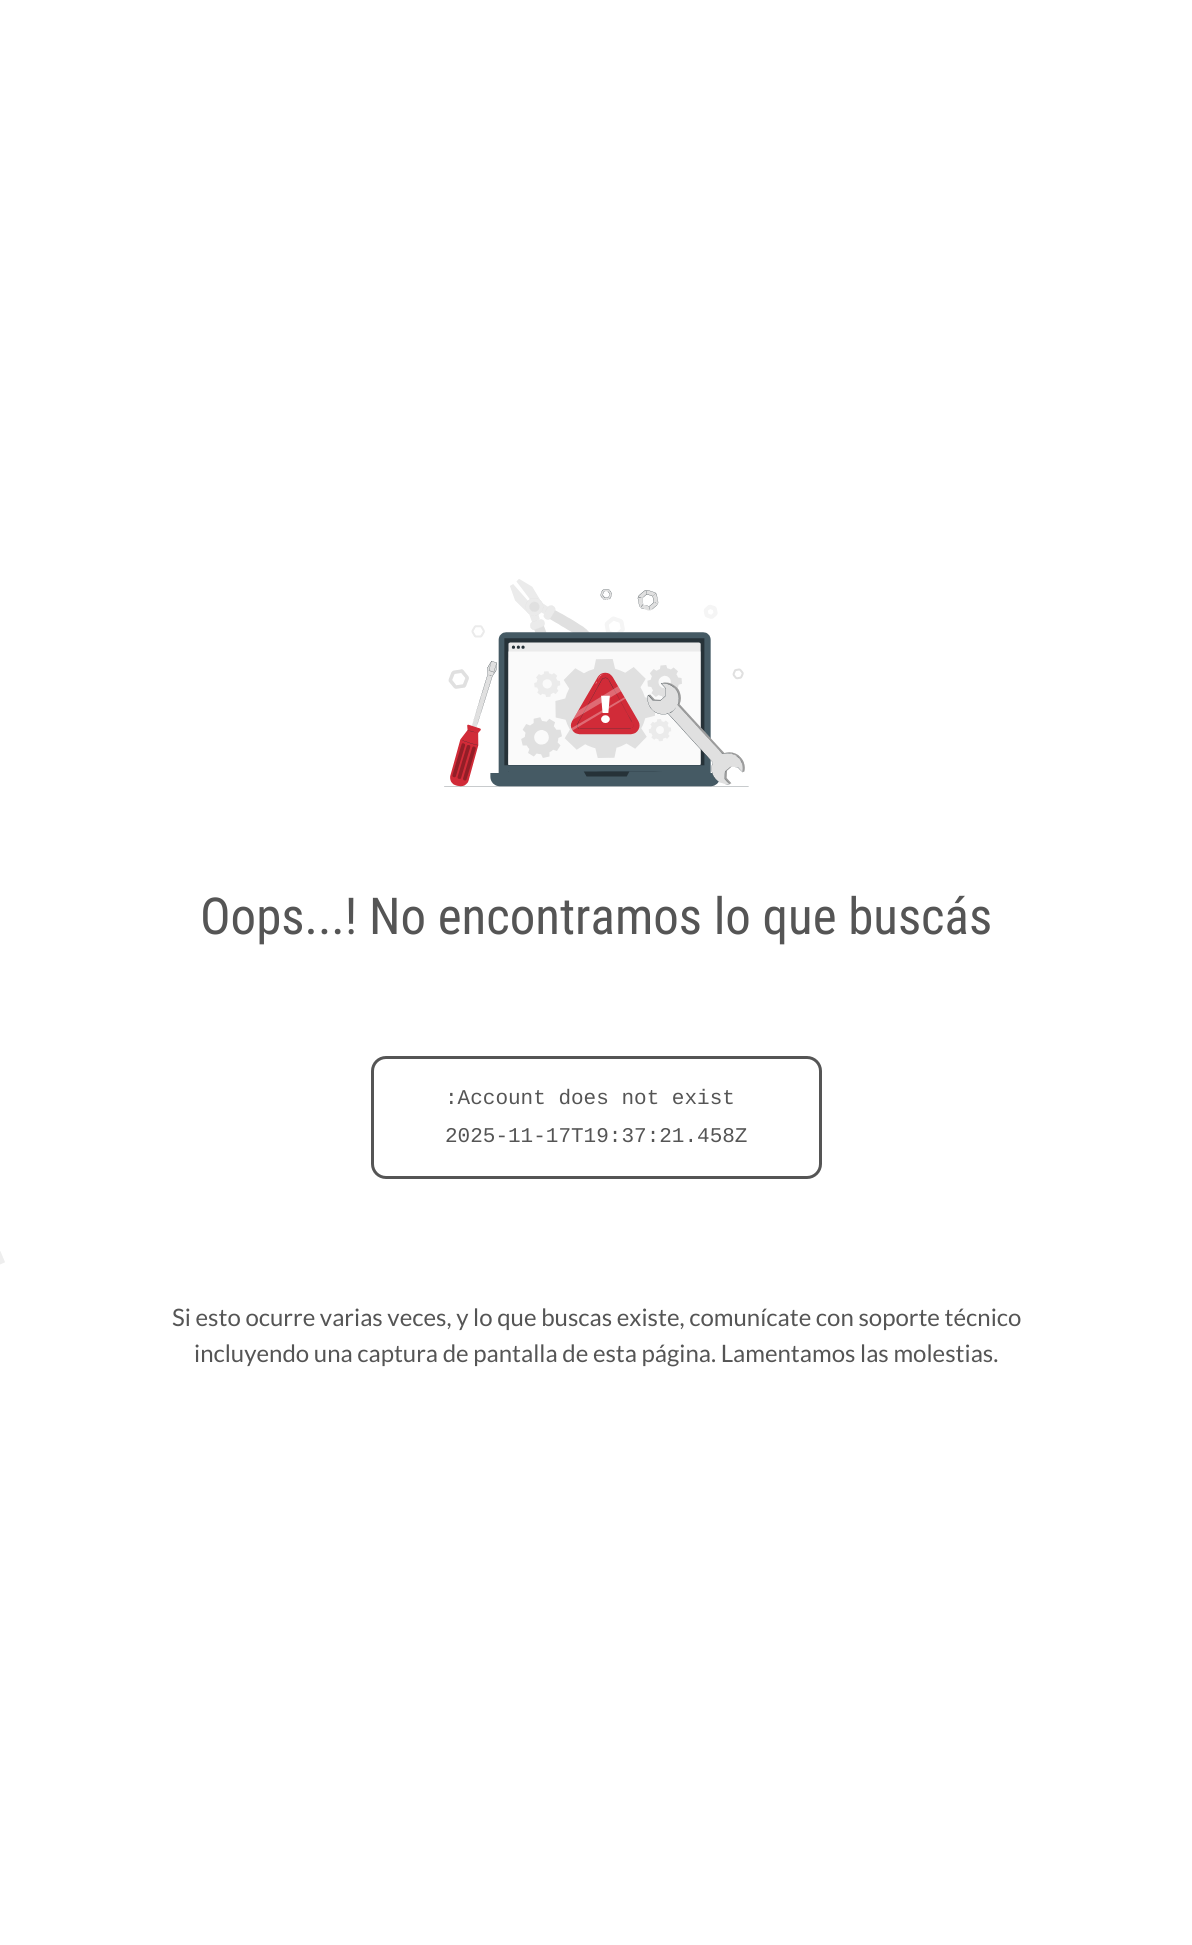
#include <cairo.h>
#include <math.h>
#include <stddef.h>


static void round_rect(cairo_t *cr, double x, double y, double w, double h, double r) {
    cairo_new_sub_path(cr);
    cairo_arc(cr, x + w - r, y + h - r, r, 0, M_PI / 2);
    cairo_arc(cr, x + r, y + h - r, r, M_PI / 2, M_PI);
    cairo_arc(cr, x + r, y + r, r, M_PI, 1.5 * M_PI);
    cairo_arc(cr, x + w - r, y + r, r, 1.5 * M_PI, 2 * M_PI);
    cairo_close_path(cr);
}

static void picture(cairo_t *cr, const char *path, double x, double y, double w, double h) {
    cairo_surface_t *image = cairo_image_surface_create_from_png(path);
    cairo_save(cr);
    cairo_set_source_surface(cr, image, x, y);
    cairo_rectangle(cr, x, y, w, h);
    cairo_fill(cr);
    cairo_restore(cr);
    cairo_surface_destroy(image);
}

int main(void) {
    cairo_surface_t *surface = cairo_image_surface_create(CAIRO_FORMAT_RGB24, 1192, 1945);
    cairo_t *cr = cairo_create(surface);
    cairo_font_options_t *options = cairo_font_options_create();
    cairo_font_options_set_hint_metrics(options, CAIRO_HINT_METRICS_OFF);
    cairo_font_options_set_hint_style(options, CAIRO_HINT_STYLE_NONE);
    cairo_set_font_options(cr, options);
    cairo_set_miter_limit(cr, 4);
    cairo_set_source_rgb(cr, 1, 1, 1);
    cairo_paint(cr);
    picture(cr, "img1.png", 0, 1251, 5, 14);
    picture(cr, "img2.png", 444, 579, 305, 208);
    cairo_select_font_face(cr, "Roboto Condensed", CAIRO_FONT_SLANT_NORMAL, CAIRO_FONT_WEIGHT_NORMAL);
    cairo_set_font_size(cr, 50.9);
    cairo_set_source_rgb(cr, 0.333, 0.333, 0.333);
    cairo_move_to(cr, 200, 934);
    cairo_show_text(cr, "Oops...! No encontramos lo que buscás");
    round_rect(cr, 372.5, 1057.5, 448, 120, 13.5);
    cairo_set_line_width(cr, 3);
    cairo_stroke(cr);
    cairo_select_font_face(cr, "Liberation Mono", CAIRO_FONT_SLANT_NORMAL, CAIRO_FONT_WEIGHT_NORMAL);
    cairo_set_font_size(cr, 21);
    cairo_move_to(cr, 445, 1104);
    cairo_show_text(cr, ":Account does not exist");
    cairo_move_to(cr, 445, 1142);
    cairo_show_text(cr, "2025-11-17T19:37:21.458Z");
    cairo_select_font_face(cr, "Lato", CAIRO_FONT_SLANT_NORMAL, CAIRO_FONT_WEIGHT_NORMAL);
    cairo_set_font_size(cr, 24);
    cairo_move_to(cr, 172, 1326);
    cairo_show_text(cr, "Si esto ocurre varias veces, y lo que buscas existe, comunícate con soporte técnico");
    cairo_move_to(cr, 194, 1362);
    cairo_show_text(cr, "incluyendo una captura de pantalla de esta página. Lamentamos las molestias.");
    cairo_surface_write_to_png(surface, "page.png");
    cairo_font_options_destroy(options);
    cairo_destroy(cr);
    cairo_surface_destroy(surface);
    return 0;
}
